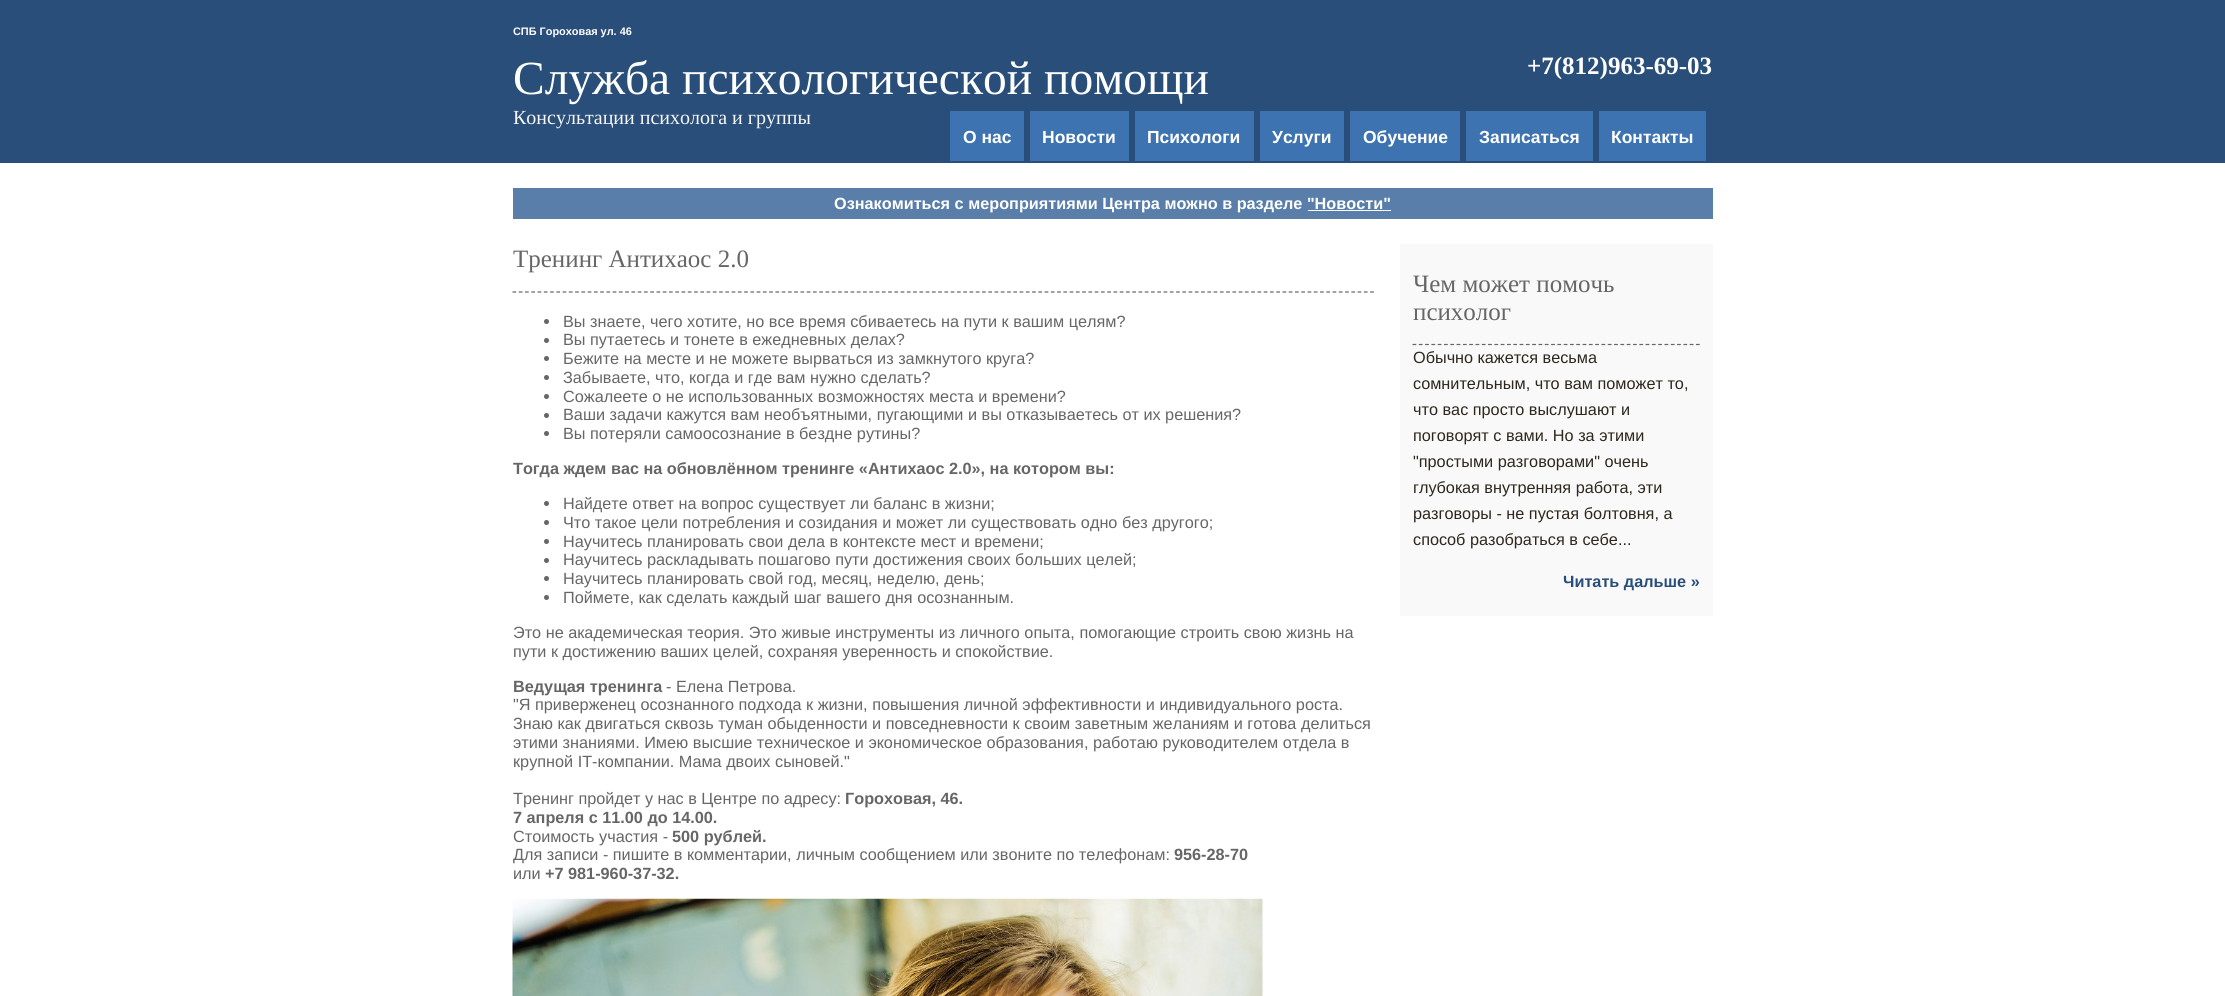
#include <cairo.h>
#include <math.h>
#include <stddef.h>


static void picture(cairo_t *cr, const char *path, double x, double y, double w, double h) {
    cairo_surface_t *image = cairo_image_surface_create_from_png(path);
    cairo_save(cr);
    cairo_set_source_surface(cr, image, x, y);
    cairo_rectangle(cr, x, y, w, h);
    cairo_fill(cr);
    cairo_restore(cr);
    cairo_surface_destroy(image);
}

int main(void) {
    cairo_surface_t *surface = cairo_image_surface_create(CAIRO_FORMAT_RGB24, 2225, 996);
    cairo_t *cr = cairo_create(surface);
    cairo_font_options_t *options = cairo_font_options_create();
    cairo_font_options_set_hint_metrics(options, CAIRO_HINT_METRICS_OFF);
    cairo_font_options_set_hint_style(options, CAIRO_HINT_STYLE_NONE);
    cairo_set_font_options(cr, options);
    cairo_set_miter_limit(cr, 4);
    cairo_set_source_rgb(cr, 0.161, 0.306, 0.475);
    cairo_paint(cr);
    cairo_select_font_face(cr, "Liberation Sans", CAIRO_FONT_SLANT_NORMAL, CAIRO_FONT_WEIGHT_BOLD);
    cairo_set_font_size(cr, 10.9);
    cairo_set_source_rgb(cr, 1, 1, 1);
    cairo_move_to(cr, 513, 35);
    cairo_show_text(cr, "СПБ Гороховая ул. 46");
    cairo_select_font_face(cr, "Liberation Serif", CAIRO_FONT_SLANT_NORMAL, CAIRO_FONT_WEIGHT_NORMAL);
    cairo_set_font_size(cr, 47.5);
    cairo_move_to(cr, 513, 94);
    cairo_show_text(cr, "Служба психологической помощи");
    cairo_select_font_face(cr, "Liberation Serif", CAIRO_FONT_SLANT_NORMAL, CAIRO_FONT_WEIGHT_BOLD);
    cairo_set_font_size(cr, 25);
    cairo_move_to(cr, 1527, 74);
    cairo_show_text(cr, "+7(812)963-69-03");
    cairo_select_font_face(cr, "Liberation Serif", CAIRO_FONT_SLANT_NORMAL, CAIRO_FONT_WEIGHT_NORMAL);
    cairo_set_font_size(cr, 20);
    cairo_set_source_rgb(cr, 0.961, 0.961, 0.961);
    cairo_move_to(cr, 513, 124);
    cairo_show_text(cr, "Консультации психолога и группы");
    cairo_set_source_rgb(cr, 0.239, 0.451, 0.694);
    cairo_rectangle(cr, 950, 111, 74, 50);
    cairo_fill(cr);
    cairo_select_font_face(cr, "Liberation Sans", CAIRO_FONT_SLANT_NORMAL, CAIRO_FONT_WEIGHT_BOLD);
    cairo_set_font_size(cr, 17.5);
    cairo_set_source_rgb(cr, 1, 1, 1);
    cairo_move_to(cr, 963, 143);
    cairo_show_text(cr, "О нас");
    cairo_set_source_rgb(cr, 0.239, 0.451, 0.694);
    cairo_rectangle(cr, 1030, 111, 99, 50);
    cairo_fill(cr);
    cairo_set_source_rgb(cr, 1, 1, 1);
    cairo_move_to(cr, 1042, 143);
    cairo_show_text(cr, "Новости");
    cairo_set_source_rgb(cr, 0.239, 0.451, 0.694);
    cairo_rectangle(cr, 1135, 111, 119, 50);
    cairo_fill(cr);
    cairo_set_source_rgb(cr, 1, 1, 1);
    cairo_move_to(cr, 1147, 143);
    cairo_show_text(cr, "Психологи");
    cairo_set_source_rgb(cr, 0.239, 0.451, 0.694);
    cairo_rectangle(cr, 1260, 111, 84, 50);
    cairo_fill(cr);
    cairo_set_source_rgb(cr, 1, 1, 1);
    cairo_move_to(cr, 1272, 143);
    cairo_show_text(cr, "Услуги");
    cairo_set_source_rgb(cr, 0.239, 0.451, 0.694);
    cairo_rectangle(cr, 1350, 111, 110, 50);
    cairo_fill(cr);
    cairo_set_source_rgb(cr, 1, 1, 1);
    cairo_move_to(cr, 1363, 143);
    cairo_show_text(cr, "Обучение");
    cairo_set_source_rgb(cr, 0.239, 0.451, 0.694);
    cairo_rectangle(cr, 1466, 111, 127, 50);
    cairo_fill(cr);
    cairo_set_source_rgb(cr, 1, 1, 1);
    cairo_move_to(cr, 1479, 143);
    cairo_show_text(cr, "Записаться");
    cairo_set_source_rgb(cr, 0.239, 0.451, 0.694);
    cairo_rectangle(cr, 1599, 111, 107, 50);
    cairo_fill(cr);
    cairo_set_source_rgb(cr, 1, 1, 1);
    cairo_move_to(cr, 1611, 143);
    cairo_show_text(cr, "Контакты");
    cairo_rectangle(cr, 0, 163, 2225, 833);
    cairo_fill(cr);
    cairo_set_source_rgb(cr, 0.349, 0.494, 0.663);
    cairo_rectangle(cr, 513, 188, 1200, 31);
    cairo_fill(cr);
    cairo_set_font_size(cr, 16.25);
    cairo_set_source_rgb(cr, 1, 1, 1);
    cairo_move_to(cr, 834, 209);
    cairo_show_text(cr, "Ознакомиться с мероприятиями Центра можно в разделе \"Новости\"");
    cairo_rectangle(cr, 1308, 210, 83, 1);
    cairo_fill(cr);
    cairo_new_path(cr);
    cairo_move_to(cr, 512.5, 292);
    cairo_line_to(cr, 1375, 292);
    cairo_set_source_rgb(cr, 0.4, 0.4, 0.4);
    cairo_set_line_width(cr, 1.2);
    cairo_set_dash(cr, (double[]){3.75, 2.51}, 2, 0);
    cairo_stroke(cr);
    cairo_select_font_face(cr, "Liberation Serif", CAIRO_FONT_SLANT_NORMAL, CAIRO_FONT_WEIGHT_NORMAL);
    cairo_set_font_size(cr, 25);
    cairo_move_to(cr, 513, 267);
    cairo_show_text(cr, "Тренинг Антихаос 2.0");
    cairo_new_path(cr);
    cairo_arc(cr, 546.5, 321.5, 2.5, 0, 2 * M_PI);
    cairo_fill(cr);
    cairo_select_font_face(cr, "Liberation Sans", CAIRO_FONT_SLANT_NORMAL, CAIRO_FONT_WEIGHT_NORMAL);
    cairo_set_font_size(cr, 16.25);
    cairo_move_to(cr, 563, 327);
    cairo_show_text(cr, "Вы знаете, чего хотите, но все время сбиваетесь на пути к вашим целям?");
    cairo_new_path(cr);
    cairo_arc(cr, 546.5, 340.5, 2.5, 0, 2 * M_PI);
    cairo_fill(cr);
    cairo_move_to(cr, 563, 345);
    cairo_show_text(cr, "Вы путаетесь и тонете в ежедневных делах?");
    cairo_new_path(cr);
    cairo_arc(cr, 546.5, 358.5, 2.5, 0, 2 * M_PI);
    cairo_fill(cr);
    cairo_move_to(cr, 563, 364);
    cairo_show_text(cr, "Бежите на месте и не можете вырваться из замкнутого круга?");
    cairo_new_path(cr);
    cairo_arc(cr, 546.5, 377.5, 2.5, 0, 2 * M_PI);
    cairo_fill(cr);
    cairo_move_to(cr, 563, 383);
    cairo_show_text(cr, "Забываете, что, когда и где вам нужно сделать?");
    cairo_new_path(cr);
    cairo_arc(cr, 546.5, 396.5, 2.5, 0, 2 * M_PI);
    cairo_fill(cr);
    cairo_move_to(cr, 563, 402);
    cairo_show_text(cr, "Сожалеете о не использованных возможностях места и времени?");
    cairo_new_path(cr);
    cairo_arc(cr, 546.5, 415.5, 2.5, 0, 2 * M_PI);
    cairo_fill(cr);
    cairo_move_to(cr, 563, 420);
    cairo_show_text(cr, "Ваши задачи кажутся вам необъятными, пугающими и вы отказываетесь от их решения?");
    cairo_new_path(cr);
    cairo_arc(cr, 546.5, 433.5, 2.5, 0, 2 * M_PI);
    cairo_fill(cr);
    cairo_move_to(cr, 563, 439);
    cairo_show_text(cr, "Вы потеряли самоосознание в бездне рутины?");
    cairo_select_font_face(cr, "Liberation Sans", CAIRO_FONT_SLANT_NORMAL, CAIRO_FONT_WEIGHT_BOLD);
    cairo_move_to(cr, 513, 474);
    cairo_show_text(cr, "Тогда ждем вас на обновлённом тренинге «Антихаос 2.0», на котором вы:");
    cairo_new_path(cr);
    cairo_arc(cr, 546.5, 503.5, 2.5, 0, 2 * M_PI);
    cairo_fill(cr);
    cairo_select_font_face(cr, "Liberation Sans", CAIRO_FONT_SLANT_NORMAL, CAIRO_FONT_WEIGHT_NORMAL);
    cairo_move_to(cr, 563, 509);
    cairo_show_text(cr, "Найдете ответ на вопрос существует ли баланс в жизни;");
    cairo_new_path(cr);
    cairo_arc(cr, 546.5, 522.5, 2.5, 0, 2 * M_PI);
    cairo_fill(cr);
    cairo_move_to(cr, 563, 528);
    cairo_show_text(cr, "Что такое цели потребления и созидания и может ли существовать одно без другого;");
    cairo_new_path(cr);
    cairo_arc(cr, 546.5, 541.5, 2.5, 0, 2 * M_PI);
    cairo_fill(cr);
    cairo_move_to(cr, 563, 547);
    cairo_show_text(cr, "Научитесь планировать свои дела в контексте мест и времени;");
    cairo_new_path(cr);
    cairo_arc(cr, 546.5, 560.5, 2.5, 0, 2 * M_PI);
    cairo_fill(cr);
    cairo_move_to(cr, 563, 565);
    cairo_show_text(cr, "Научитесь раскладывать пошагово пути достижения своих больших целей;");
    cairo_new_path(cr);
    cairo_arc(cr, 546.5, 578.5, 2.5, 0, 2 * M_PI);
    cairo_fill(cr);
    cairo_move_to(cr, 563, 584);
    cairo_show_text(cr, "Научитесь планировать свой год, месяц, неделю, день;");
    cairo_new_path(cr);
    cairo_arc(cr, 546.5, 597.5, 2.5, 0, 2 * M_PI);
    cairo_fill(cr);
    cairo_move_to(cr, 563, 603);
    cairo_show_text(cr, "Поймете, как сделать каждый шаг вашего дня осознанным.");
    cairo_move_to(cr, 513, 638);
    cairo_show_text(cr, "Это не академическая теория. Это живые инструменты из личного опыта, помогающие строить свою жизнь на");
    cairo_move_to(cr, 513, 657);
    cairo_show_text(cr, "пути к достижению ваших целей, сохраняя уверенность и спокойствие.");
    cairo_select_font_face(cr, "Liberation Sans", CAIRO_FONT_SLANT_NORMAL, CAIRO_FONT_WEIGHT_BOLD);
    cairo_move_to(cr, 513, 692);
    cairo_show_text(cr, "Ведущая тренинга");
    cairo_select_font_face(cr, "Liberation Sans", CAIRO_FONT_SLANT_NORMAL, CAIRO_FONT_WEIGHT_NORMAL);
    cairo_move_to(cr, 666, 692);
    cairo_show_text(cr, "- Елена Петрова.");
    cairo_move_to(cr, 513, 710);
    cairo_show_text(cr, "\"Я приверженец осознанного подхода к жизни, повышения личной эффективности и индивидуального роста.");
    cairo_move_to(cr, 513, 729);
    cairo_show_text(cr, "Знаю как двигаться сквозь туман обыденности и повседневности к своим заветным желаниям и готова делиться");
    cairo_move_to(cr, 513, 748);
    cairo_show_text(cr, "этими знаниями. Имею высшие техническое и экономическое образования, работаю руководителем отдела в");
    cairo_move_to(cr, 513, 767);
    cairo_show_text(cr, "крупной IT-компании. Мама двоих сыновей.\"");
    cairo_move_to(cr, 513, 804);
    cairo_show_text(cr, "Тренинг пройдет у нас в Центре по адресу:");
    cairo_select_font_face(cr, "Liberation Sans", CAIRO_FONT_SLANT_NORMAL, CAIRO_FONT_WEIGHT_BOLD);
    cairo_move_to(cr, 845, 804);
    cairo_show_text(cr, "Гороховая, 46.");
    cairo_move_to(cr, 513, 823);
    cairo_show_text(cr, "7 апреля с 11.00 до 14.00.");
    cairo_select_font_face(cr, "Liberation Sans", CAIRO_FONT_SLANT_NORMAL, CAIRO_FONT_WEIGHT_NORMAL);
    cairo_move_to(cr, 513, 842);
    cairo_show_text(cr, "Стоимость участия -");
    cairo_select_font_face(cr, "Liberation Sans", CAIRO_FONT_SLANT_NORMAL, CAIRO_FONT_WEIGHT_BOLD);
    cairo_move_to(cr, 672, 842);
    cairo_show_text(cr, "500 рублей.");
    cairo_select_font_face(cr, "Liberation Sans", CAIRO_FONT_SLANT_NORMAL, CAIRO_FONT_WEIGHT_NORMAL);
    cairo_move_to(cr, 513, 860);
    cairo_show_text(cr, "Для записи - пишите в комментарии, личным сообщением или звоните по телефонам:");
    cairo_select_font_face(cr, "Liberation Sans", CAIRO_FONT_SLANT_NORMAL, CAIRO_FONT_WEIGHT_BOLD);
    cairo_move_to(cr, 1174, 860);
    cairo_show_text(cr, "956-28-70");
    cairo_select_font_face(cr, "Liberation Sans", CAIRO_FONT_SLANT_NORMAL, CAIRO_FONT_WEIGHT_NORMAL);
    cairo_move_to(cr, 513, 879);
    cairo_show_text(cr, "или");
    cairo_select_font_face(cr, "Liberation Sans", CAIRO_FONT_SLANT_NORMAL, CAIRO_FONT_WEIGHT_BOLD);
    cairo_move_to(cr, 545, 879);
    cairo_show_text(cr, "+7 981-960-37-32.");
    picture(cr, "img1.png", 512, 898, 751, 98);
    cairo_set_source_rgb(cr, 0.976, 0.976, 0.976);
    cairo_rectangle(cr, 1400, 244, 313, 372);
    cairo_fill(cr);
    cairo_new_path(cr);
    cairo_move_to(cr, 1412.5, 344.5);
    cairo_line_to(cr, 1700, 344.5);
    cairo_set_source_rgb(cr, 0.4, 0.4, 0.4);
    cairo_set_dash(cr, (double[]){3.75, 2.55}, 2, 0);
    cairo_stroke(cr);
    cairo_select_font_face(cr, "Liberation Serif", CAIRO_FONT_SLANT_NORMAL, CAIRO_FONT_WEIGHT_NORMAL);
    cairo_set_font_size(cr, 25);
    cairo_move_to(cr, 1413, 292);
    cairo_show_text(cr, "Чем может помочь");
    cairo_move_to(cr, 1413, 320);
    cairo_show_text(cr, "психолог");
    cairo_select_font_face(cr, "Liberation Sans", CAIRO_FONT_SLANT_NORMAL, CAIRO_FONT_WEIGHT_NORMAL);
    cairo_set_font_size(cr, 16.25);
    cairo_set_source_rgb(cr, 0.18, 0.153, 0.114);
    cairo_move_to(cr, 1413, 363);
    cairo_show_text(cr, "Обычно кажется весьма");
    cairo_move_to(cr, 1413, 389);
    cairo_show_text(cr, "сомнительным, что вам поможет то,");
    cairo_move_to(cr, 1413, 415);
    cairo_show_text(cr, "что вас просто выслушают и");
    cairo_move_to(cr, 1413, 441);
    cairo_show_text(cr, "поговорят с вами. Но за этими");
    cairo_move_to(cr, 1413, 467);
    cairo_show_text(cr, "\"простыми разговорами\" очень");
    cairo_move_to(cr, 1413, 493);
    cairo_show_text(cr, "глубокая внутренняя работа, эти");
    cairo_move_to(cr, 1413, 519);
    cairo_show_text(cr, "разговоры - не пустая болтовня, а");
    cairo_move_to(cr, 1413, 545);
    cairo_show_text(cr, "способ разобраться в себе...");
    cairo_select_font_face(cr, "Liberation Sans", CAIRO_FONT_SLANT_NORMAL, CAIRO_FONT_WEIGHT_BOLD);
    cairo_set_source_rgb(cr, 0.161, 0.306, 0.475);
    cairo_move_to(cr, 1563, 587);
    cairo_show_text(cr, "Читать дальше »");
    cairo_surface_write_to_png(surface, "page.png");
    cairo_font_options_destroy(options);
    cairo_destroy(cr);
    cairo_surface_destroy(surface);
    return 0;
}
